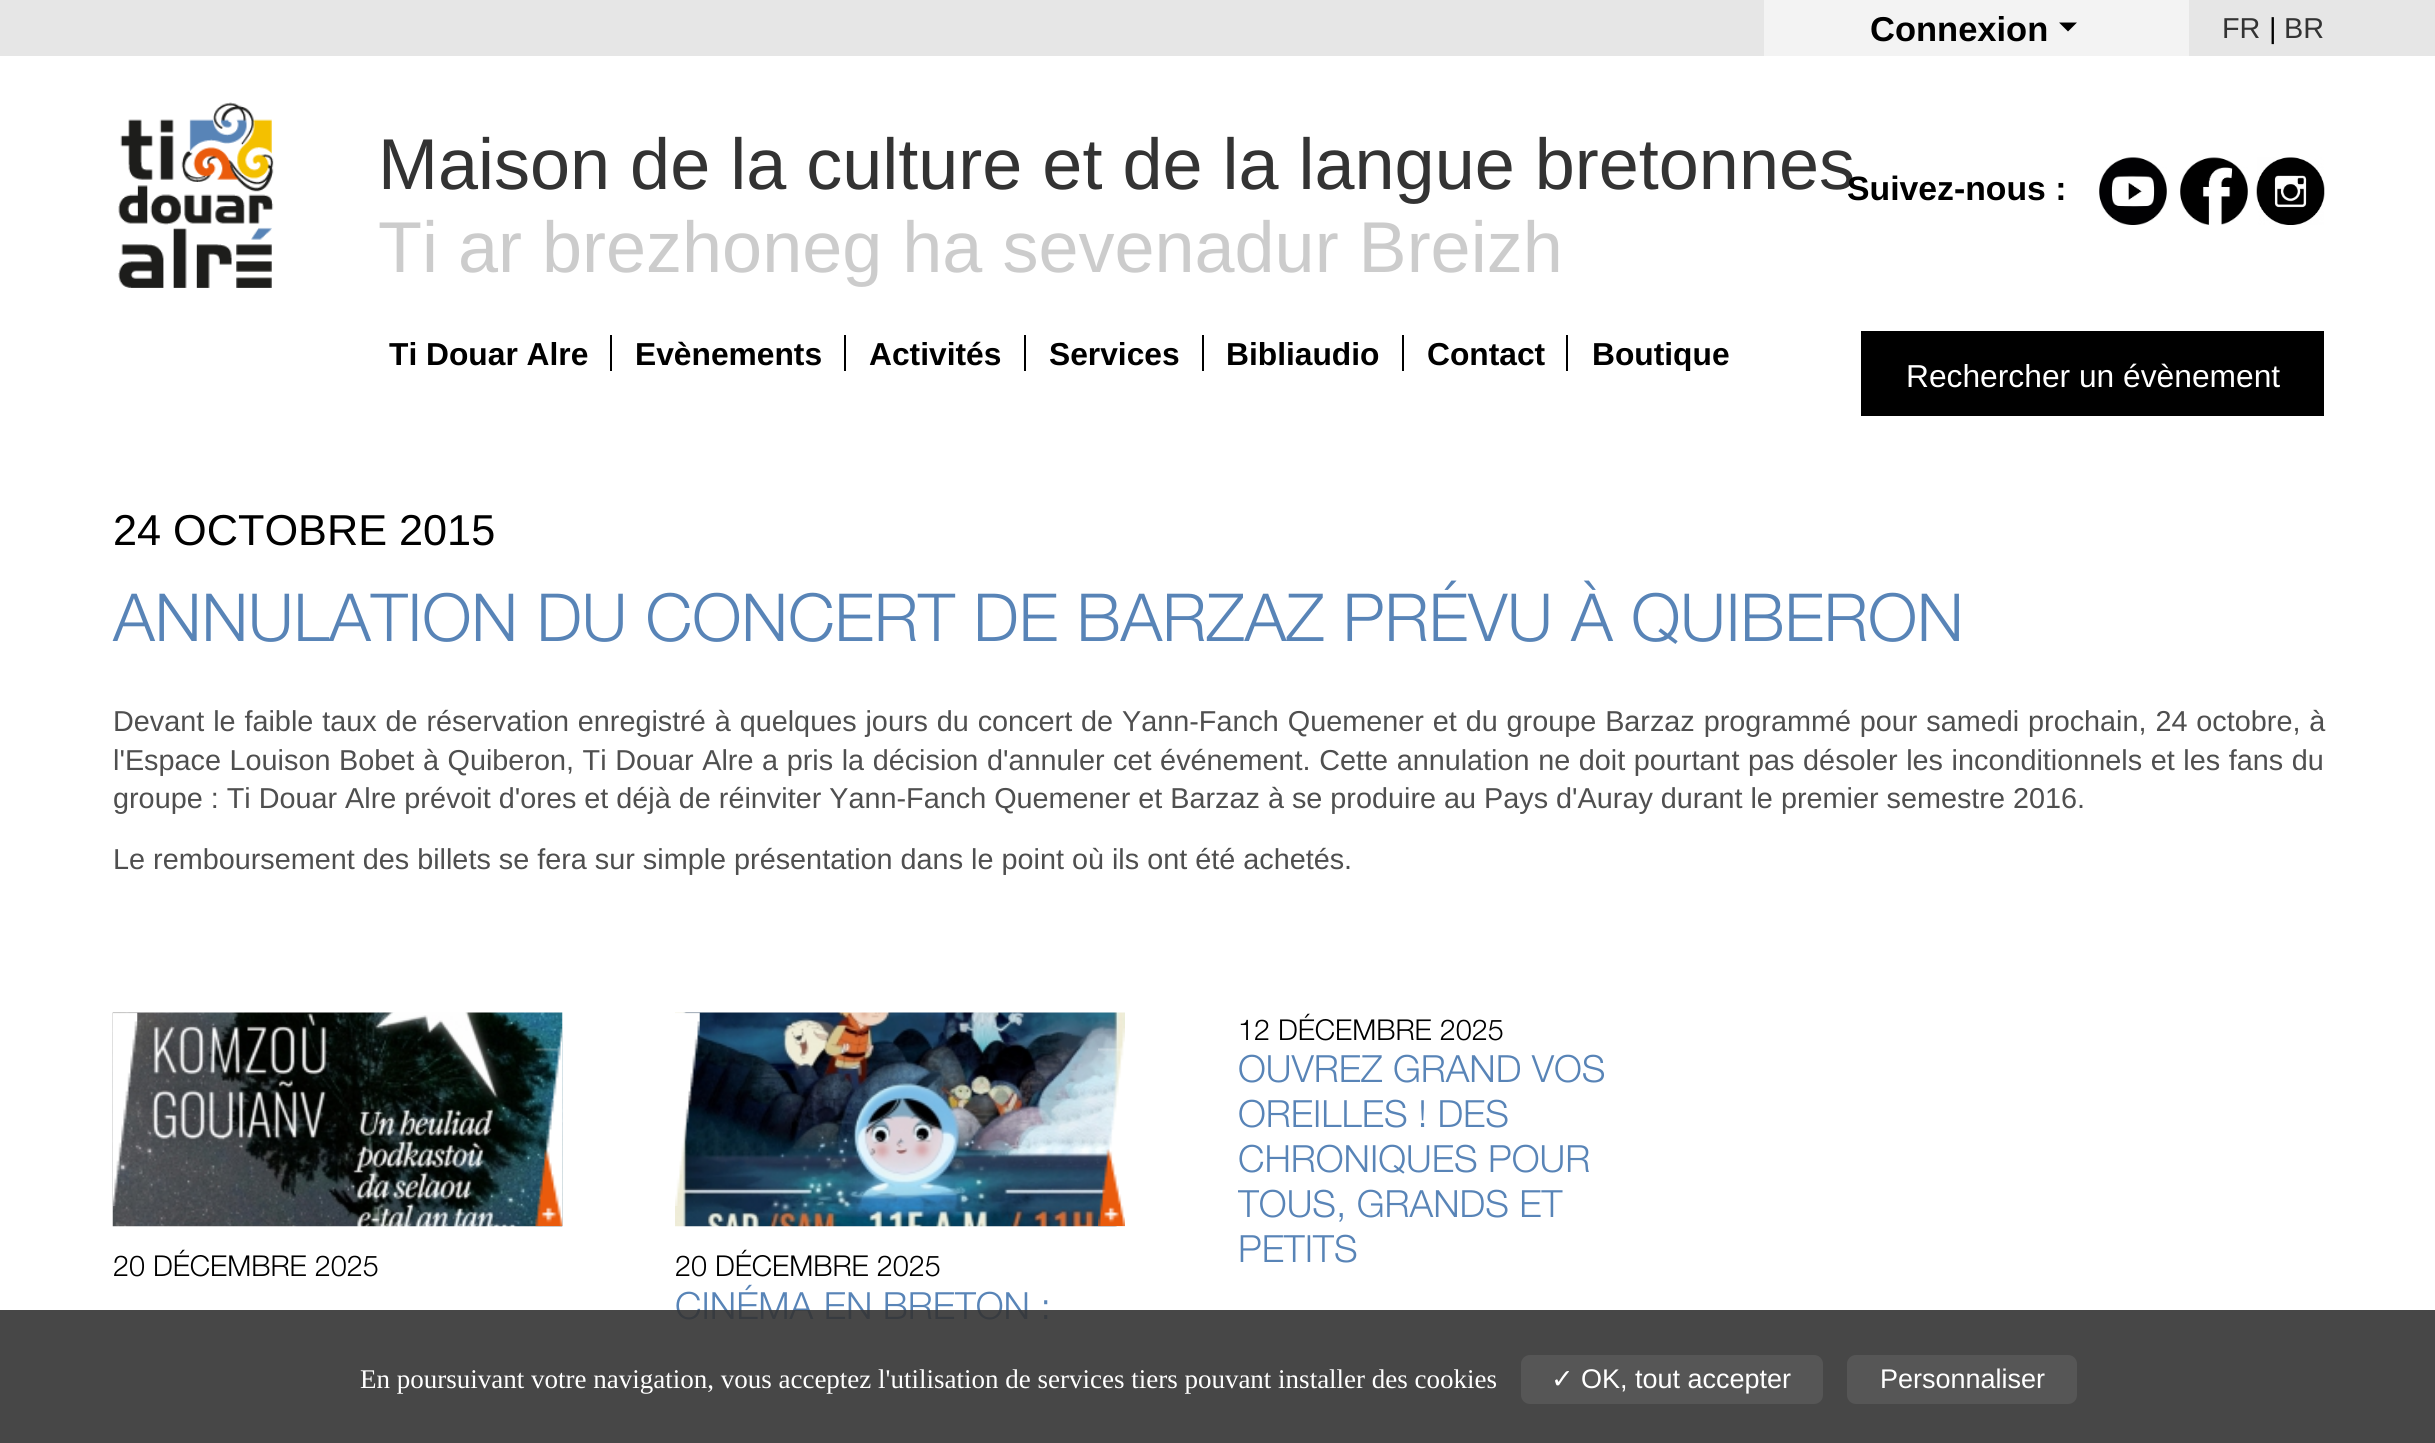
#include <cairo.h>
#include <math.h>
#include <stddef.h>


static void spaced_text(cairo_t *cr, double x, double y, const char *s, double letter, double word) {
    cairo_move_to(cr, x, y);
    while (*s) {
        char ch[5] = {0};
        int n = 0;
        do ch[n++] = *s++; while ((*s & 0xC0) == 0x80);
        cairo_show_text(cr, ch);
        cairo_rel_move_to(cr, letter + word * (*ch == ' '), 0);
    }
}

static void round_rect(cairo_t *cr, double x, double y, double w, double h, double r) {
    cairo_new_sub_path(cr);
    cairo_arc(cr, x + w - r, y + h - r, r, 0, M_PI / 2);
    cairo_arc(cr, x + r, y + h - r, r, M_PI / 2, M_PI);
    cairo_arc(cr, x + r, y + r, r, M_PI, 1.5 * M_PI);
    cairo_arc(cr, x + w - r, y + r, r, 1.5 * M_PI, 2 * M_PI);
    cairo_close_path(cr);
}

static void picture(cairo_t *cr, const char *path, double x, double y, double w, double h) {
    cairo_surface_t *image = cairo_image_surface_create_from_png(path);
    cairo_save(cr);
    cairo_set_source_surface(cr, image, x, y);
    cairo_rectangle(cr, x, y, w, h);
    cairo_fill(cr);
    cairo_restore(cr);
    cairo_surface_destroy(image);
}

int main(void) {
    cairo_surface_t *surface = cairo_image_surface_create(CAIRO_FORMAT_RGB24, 2435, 1443);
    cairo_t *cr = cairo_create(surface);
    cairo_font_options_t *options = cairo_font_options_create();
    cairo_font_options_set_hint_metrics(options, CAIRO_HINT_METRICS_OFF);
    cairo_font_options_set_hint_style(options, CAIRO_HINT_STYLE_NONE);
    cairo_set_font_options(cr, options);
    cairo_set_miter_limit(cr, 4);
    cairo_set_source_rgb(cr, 1, 1, 1);
    cairo_paint(cr);
    cairo_set_source_rgb(cr, 0.902, 0.902, 0.902);
    cairo_rectangle(cr, 0, 0, 2435, 56);
    cairo_fill(cr);
    cairo_set_source_rgb(cr, 0.953, 0.953, 0.953);
    cairo_rectangle(cr, 1764, 0, 425, 56);
    cairo_fill(cr);
    cairo_select_font_face(cr, "Liberation Sans", CAIRO_FONT_SLANT_NORMAL, CAIRO_FONT_WEIGHT_BOLD);
    cairo_set_font_size(cr, 34.5);
    cairo_set_source_rgb(cr, 0, 0, 0);
    cairo_move_to(cr, 1870, 41);
    cairo_show_text(cr, "Connexion");
    cairo_new_path(cr);
    cairo_move_to(cr, 2059, 22.5);
    cairo_line_to(cr, 2077, 22.5);
    cairo_line_to(cr, 2068, 31.5);
    cairo_close_path(cr);
    cairo_fill(cr);
    cairo_select_font_face(cr, "Liberation Sans", CAIRO_FONT_SLANT_NORMAL, CAIRO_FONT_WEIGHT_NORMAL);
    cairo_set_font_size(cr, 28.8);
    cairo_set_source_rgb(cr, 0.2, 0.2, 0.2);
    cairo_move_to(cr, 2222, 38);
    cairo_show_text(cr, "FR");
    cairo_set_source_rgb(cr, 0, 0, 0);
    cairo_move_to(cr, 2269, 38);
    cairo_show_text(cr, "|");
    cairo_set_source_rgb(cr, 0.2, 0.2, 0.2);
    cairo_move_to(cr, 2284, 38);
    cairo_show_text(cr, "BR");
    picture(cr, "img1.png", 118, 102, 156, 186);
    cairo_set_font_size(cr, 72);
    cairo_move_to(cr, 378, 189);
    cairo_show_text(cr, "Maison de la culture et de la langue bretonnes");
    cairo_set_source_rgb(cr, 0.8, 0.8, 0.8);
    cairo_move_to(cr, 378, 272);
    cairo_show_text(cr, "Ti ar brezhoneg ha sevenadur Breizh");
    cairo_select_font_face(cr, "Liberation Sans", CAIRO_FONT_SLANT_NORMAL, CAIRO_FONT_WEIGHT_BOLD);
    cairo_set_font_size(cr, 33.75);
    cairo_set_source_rgb(cr, 0, 0, 0);
    cairo_move_to(cr, 1847, 200);
    cairo_show_text(cr, "Suivez-nous :");
    picture(cr, "img2.png", 2099, 157, 68, 68);
    picture(cr, "img3.png", 2180, 157, 68, 68);
    picture(cr, "img4.png", 2256, 157, 69, 68);
    cairo_rectangle(cr, 610, 335, 2, 36);
    cairo_fill(cr);
    cairo_set_font_size(cr, 31.75);
    cairo_move_to(cr, 389, 365);
    cairo_show_text(cr, "Ti Douar Alre");
    cairo_rectangle(cr, 844, 335, 2, 36);
    cairo_fill(cr);
    cairo_move_to(cr, 635, 365);
    cairo_show_text(cr, "Evènements");
    cairo_rectangle(cr, 1024, 335, 2, 36);
    cairo_fill(cr);
    cairo_move_to(cr, 869, 365);
    cairo_show_text(cr, "Activités");
    cairo_rectangle(cr, 1202, 335, 2, 36);
    cairo_fill(cr);
    cairo_move_to(cr, 1049, 365);
    cairo_show_text(cr, "Services");
    cairo_rectangle(cr, 1402, 335, 2, 36);
    cairo_fill(cr);
    cairo_move_to(cr, 1226, 365);
    cairo_show_text(cr, "Bibliaudio");
    cairo_rectangle(cr, 1566, 335, 2, 36);
    cairo_fill(cr);
    cairo_move_to(cr, 1427, 365);
    cairo_show_text(cr, "Contact");
    cairo_save(cr);
    cairo_rectangle(cr, 338, 335, 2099, 36);
    cairo_clip(cr);
    cairo_move_to(cr, 1592, 365);
    cairo_show_text(cr, "Boutique");
    cairo_restore(cr);
    cairo_rectangle(cr, 1861, 331, 463, 85);
    cairo_fill(cr);
    cairo_select_font_face(cr, "Liberation Sans", CAIRO_FONT_SLANT_NORMAL, CAIRO_FONT_WEIGHT_NORMAL);
    cairo_set_source_rgb(cr, 1, 1, 1);
    cairo_move_to(cr, 1906, 387);
    cairo_show_text(cr, "Rechercher un évènement");
    cairo_set_font_size(cr, 43.25);
    cairo_set_source_rgb(cr, 0, 0, 0);
    cairo_move_to(cr, 113, 545);
    cairo_show_text(cr, "24 OCTOBRE 2015");
    cairo_select_font_face(cr, "Helvetica Neue Light", CAIRO_FONT_SLANT_NORMAL, CAIRO_FONT_WEIGHT_NORMAL);
    cairo_set_font_size(cr, 66.25);
    cairo_set_source_rgb(cr, 0.345, 0.518, 0.718);
    cairo_move_to(cr, 113, 641);
    cairo_show_text(cr, "ANNULATION DU CONCERT DE BARZAZ PRÉVU À QUIBERON");
    cairo_select_font_face(cr, "Liberation Sans", CAIRO_FONT_SLANT_NORMAL, CAIRO_FONT_WEIGHT_NORMAL);
    cairo_set_font_size(cr, 28.8);
    cairo_set_source_rgb(cr, 0.31, 0.31, 0.31);
    spaced_text(cr, 113, 731, "Devant le faible taux de réservation enregistré à quelques jours du concert de Yann-Fanch Quemener et du groupe Barzaz programmé pour samedi prochain, 24 octobre, à", 0, 0.9);
    spaced_text(cr, 113, 770, "l'Espace Louison Bobet à Quiberon, Ti Douar Alre a pris la décision d'annuler cet événement. Cette annulation ne doit pourtant pas désoler les inconditionnels et les fans du", 0, 0.6);
    cairo_move_to(cr, 113, 808);
    cairo_show_text(cr, "groupe : Ti Douar Alre prévoit d'ores et déjà de réinviter Yann-Fanch Quemener et Barzaz à se produire au Pays d'Auray durant le premier semestre 2016.");
    cairo_move_to(cr, 113, 869);
    cairo_show_text(cr, "Le remboursement des billets se fera sur simple présentation dans le point où ils ont été achetés.");
    picture(cr, "img5.png", 112, 1012, 451, 215);
    picture(cr, "img6.png", 112, 1012, 26, 194);
    picture(cr, "img7.png", 535, 1027, 28, 200);
    cairo_select_font_face(cr, "Helvetica Neue Light", CAIRO_FONT_SLANT_NORMAL, CAIRO_FONT_WEIGHT_NORMAL);
    cairo_set_source_rgb(cr, 0, 0, 0);
    cairo_move_to(cr, 113, 1276);
    cairo_show_text(cr, "20 DÉCEMBRE 2025");
    picture(cr, "img8.png", 675, 1012, 450, 215);
    picture(cr, "img9.png", 675, 1012, 25, 194);
    picture(cr, "img10.png", 1098, 1028, 27, 199);
    cairo_move_to(cr, 675, 1276);
    cairo_show_text(cr, "20 DÉCEMBRE 2025");
    cairo_set_font_size(cr, 37.5);
    cairo_set_source_rgb(cr, 0.345, 0.518, 0.718);
    cairo_move_to(cr, 675, 1319);
    cairo_show_text(cr, "CINÉMA EN BRETON :");
    cairo_set_font_size(cr, 28.8);
    cairo_set_source_rgb(cr, 0, 0, 0);
    cairo_move_to(cr, 1238, 1040);
    cairo_show_text(cr, "12 DÉCEMBRE 2025");
    cairo_set_font_size(cr, 37.5);
    cairo_set_source_rgb(cr, 0.345, 0.518, 0.718);
    cairo_move_to(cr, 1238, 1082);
    cairo_show_text(cr, "OUVREZ GRAND VOS");
    cairo_move_to(cr, 1238, 1127);
    cairo_show_text(cr, "OREILLES ! DES");
    cairo_move_to(cr, 1238, 1172);
    cairo_show_text(cr, "CHRONIQUES POUR");
    cairo_save(cr);
    cairo_rectangle(cr, 1238, 1013, 450, 418);
    cairo_clip(cr);
    cairo_move_to(cr, 1238, 1217);
    cairo_show_text(cr, "TOUS, GRANDS ET");
    cairo_restore(cr);
    cairo_move_to(cr, 1238, 1262);
    cairo_show_text(cr, "PETITS");
    cairo_set_source_rgba(cr, 0.2, 0.2, 0.2, 0.9);
    cairo_rectangle(cr, 0, 1310, 2435, 133);
    cairo_fill(cr);
    cairo_select_font_face(cr, "Liberation Serif", CAIRO_FONT_SLANT_NORMAL, CAIRO_FONT_WEIGHT_NORMAL);
    cairo_set_font_size(cr, 27);
    cairo_set_source_rgb(cr, 1, 1, 1);
    cairo_move_to(cr, 360, 1388);
    cairo_show_text(cr, "En poursuivant votre navigation, vous acceptez l'utilisation de services tiers pouvant installer des cookies");
    cairo_set_source_rgb(cr, 0.337, 0.337, 0.337);
    round_rect(cr, 1521, 1355, 302, 49, 9);
    cairo_fill(cr);
    cairo_select_font_face(cr, "DejaVu Sans", CAIRO_FONT_SLANT_NORMAL, CAIRO_FONT_WEIGHT_NORMAL);
    cairo_set_source_rgb(cr, 1, 1, 1);
    cairo_move_to(cr, 1551, 1388);
    cairo_show_text(cr, "✓");
    cairo_select_font_face(cr, "Liberation Sans", CAIRO_FONT_SLANT_NORMAL, CAIRO_FONT_WEIGHT_NORMAL);
    cairo_move_to(cr, 1581, 1388);
    cairo_show_text(cr, "OK, tout accepter");
    cairo_set_source_rgb(cr, 0.337, 0.337, 0.337);
    round_rect(cr, 1847, 1355, 230, 49, 9);
    cairo_fill(cr);
    cairo_set_source_rgb(cr, 1, 1, 1);
    cairo_move_to(cr, 1880, 1388);
    cairo_show_text(cr, "Personnaliser");
    cairo_surface_write_to_png(surface, "page.png");
    cairo_font_options_destroy(options);
    cairo_destroy(cr);
    cairo_surface_destroy(surface);
    return 0;
}
